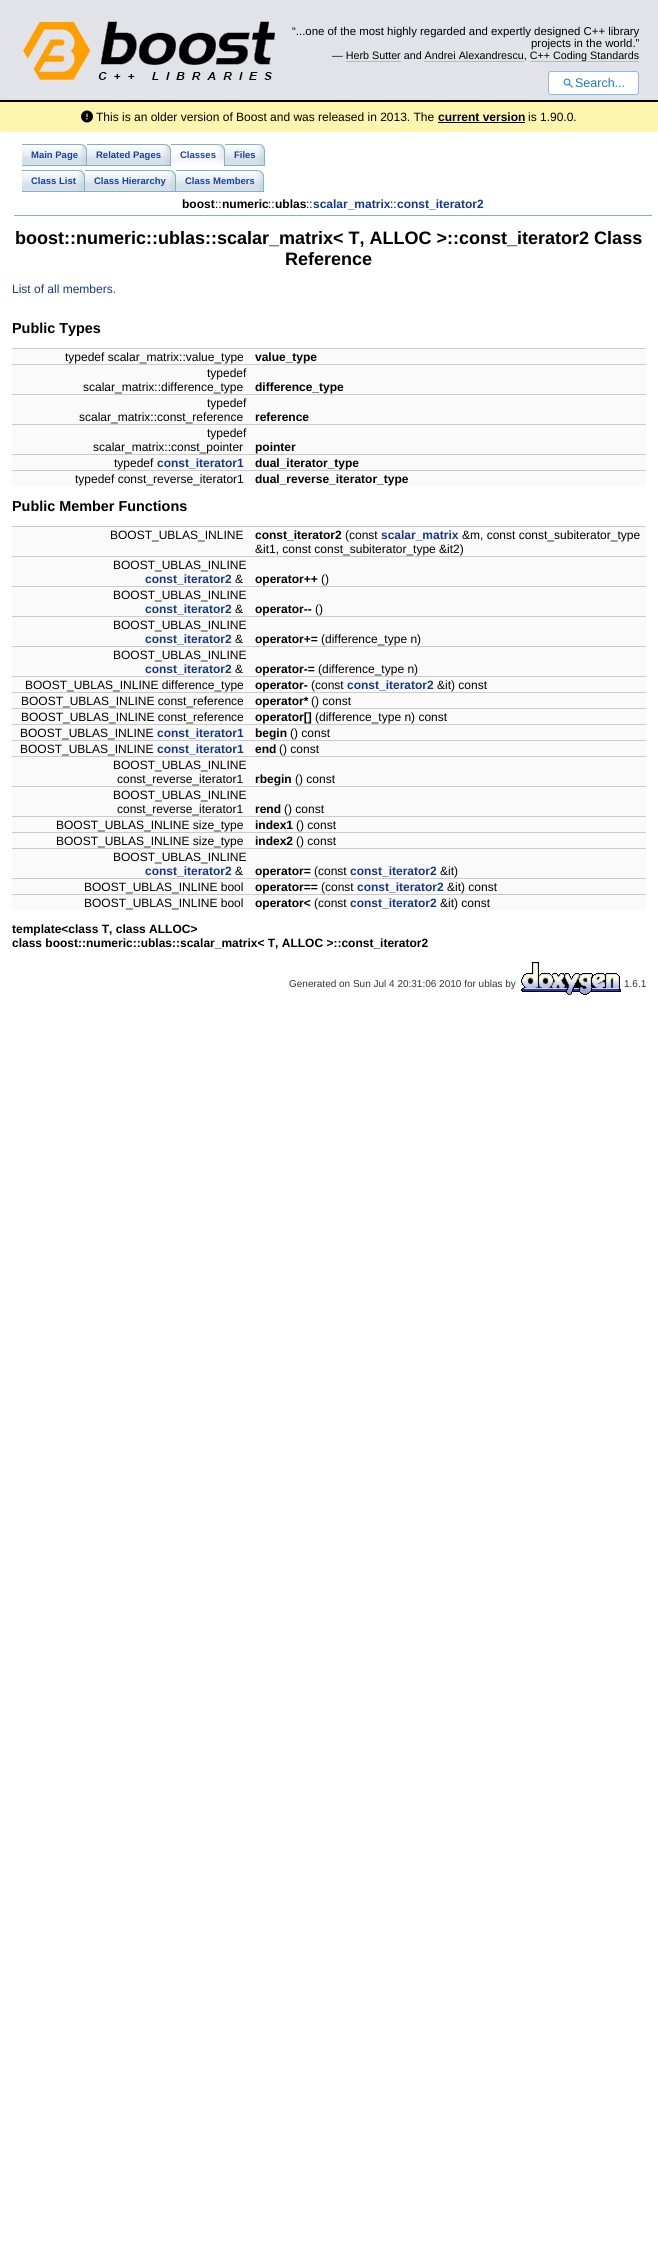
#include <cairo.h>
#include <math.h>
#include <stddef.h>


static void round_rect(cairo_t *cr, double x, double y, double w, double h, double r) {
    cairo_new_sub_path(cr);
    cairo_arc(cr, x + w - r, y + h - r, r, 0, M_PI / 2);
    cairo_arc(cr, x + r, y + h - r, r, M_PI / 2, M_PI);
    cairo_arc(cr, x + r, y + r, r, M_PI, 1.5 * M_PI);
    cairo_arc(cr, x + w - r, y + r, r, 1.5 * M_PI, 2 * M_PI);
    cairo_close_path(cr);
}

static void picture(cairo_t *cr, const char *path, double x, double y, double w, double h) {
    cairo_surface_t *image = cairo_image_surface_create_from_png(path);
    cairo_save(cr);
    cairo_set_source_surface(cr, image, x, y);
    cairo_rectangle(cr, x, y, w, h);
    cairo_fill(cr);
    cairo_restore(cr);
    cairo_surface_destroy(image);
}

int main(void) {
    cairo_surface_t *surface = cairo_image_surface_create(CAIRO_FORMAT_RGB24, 658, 2248);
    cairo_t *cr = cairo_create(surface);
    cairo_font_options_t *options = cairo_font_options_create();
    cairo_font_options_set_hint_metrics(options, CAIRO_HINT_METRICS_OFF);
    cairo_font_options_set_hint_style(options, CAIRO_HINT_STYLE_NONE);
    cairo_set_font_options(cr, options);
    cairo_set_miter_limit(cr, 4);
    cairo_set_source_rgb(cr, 1, 1, 1);
    cairo_paint(cr);
    cairo_set_source_rgb(cr, 0.882, 0.89, 0.91);
    cairo_rectangle(cr, 0, 0, 658, 100);
    cairo_fill(cr);
    cairo_set_source_rgb(cr, 0, 0, 0);
    cairo_rectangle(cr, 0, 100, 658, 2);
    cairo_fill(cr);
    picture(cr, "img1.png", 23, 21, 252, 59);
    cairo_select_font_face(cr, "Liberation Sans", CAIRO_FONT_SLANT_NORMAL, CAIRO_FONT_WEIGHT_NORMAL);
    cairo_set_font_size(cr, 11.4);
    cairo_move_to(cr, 292, 35);
    cairo_show_text(cr, "“...one of the most highly regarded and expertly designed C++ library");
    cairo_move_to(cr, 531, 47);
    cairo_show_text(cr, "projects in the world.”");
    cairo_set_font_size(cr, 10.75);
    cairo_move_to(cr, 332, 59);
    cairo_show_text(cr, "— Herb Sutter and Andrei Alexandrescu, C++");
    cairo_set_source_rgb(cr, 0.733, 0.733, 0.733);
    cairo_rectangle(cr, 530, 61, 109, 1);
    cairo_fill(cr);
    cairo_set_source_rgb(cr, 0, 0, 0);
    cairo_move_to(cr, 553, 59);
    cairo_show_text(cr, "Coding Standards");
    cairo_set_source_rgb(cr, 0.733, 0.733, 0.733);
    cairo_rectangle(cr, 346, 61, 55, 1);
    cairo_fill(cr);
    cairo_rectangle(cr, 424, 61, 100, 1);
    cairo_fill(cr);
    cairo_set_source_rgb(cr, 1, 1, 1);
    round_rect(cr, 548, 71, 91, 24, 3);
    cairo_fill(cr);
    round_rect(cr, 548.5, 71.5, 90, 23, 2.5);
    cairo_set_source_rgba(cr, 0.098, 0.463, 0.824, 0.5);
    cairo_set_line_width(cr, 1);
    cairo_stroke(cr);
    picture(cr, "img2.png", 563, 78, 10, 10);
    cairo_set_font_size(cr, 12.5);
    cairo_set_source_rgb(cr, 0.098, 0.463, 0.824);
    cairo_move_to(cr, 575, 87);
    cairo_show_text(cr, "Search...");
    cairo_set_source_rgb(cr, 0.996, 0.961, 0.682);
    round_rect(cr, 0, 102, 658, 30, 2);
    cairo_fill(cr);
    picture(cr, "img3.png", 81, 110, 12, 13);
    cairo_set_font_size(cr, 12);
    cairo_set_source_rgb(cr, 0, 0, 0);
    cairo_move_to(cr, 96, 121);
    cairo_show_text(cr, "This is an older version of Boost and was released in 2013. The");
    cairo_select_font_face(cr, "Liberation Sans", CAIRO_FONT_SLANT_NORMAL, CAIRO_FONT_WEIGHT_BOLD);
    cairo_move_to(cr, 438, 121);
    cairo_show_text(cr, "current version");
    cairo_rectangle(cr, 438, 122, 87, 1);
    cairo_fill(cr);
    cairo_select_font_face(cr, "Liberation Sans", CAIRO_FONT_SLANT_NORMAL, CAIRO_FONT_WEIGHT_NORMAL);
    cairo_move_to(cr, 528, 121);
    cairo_show_text(cr, "is 1.90.0.");
    picture(cr, "img4.png", 22, 144, 65, 21);
    cairo_set_source_rgb(cr, 0.518, 0.69, 0.78);
    cairo_rectangle(cr, 22, 165, 149, 1);
    cairo_fill(cr);
    cairo_select_font_face(cr, "Liberation Sans", CAIRO_FONT_SLANT_NORMAL, CAIRO_FONT_WEIGHT_BOLD);
    cairo_set_font_size(cr, 9.5);
    cairo_set_source_rgb(cr, 0.102, 0.255, 0.616);
    cairo_move_to(cr, 31, 158);
    cairo_show_text(cr, "Main Page");
    picture(cr, "img5.png", 87, 144, 84, 21);
    cairo_move_to(cr, 96, 158);
    cairo_show_text(cr, "Related Pages");
    picture(cr, "img6.png", 171, 144, 54, 22);
    cairo_move_to(cr, 180, 158);
    cairo_show_text(cr, "Classes");
    picture(cr, "img7.png", 225, 144, 40, 21);
    cairo_set_source_rgb(cr, 0.518, 0.69, 0.78);
    cairo_rectangle(cr, 225, 165, 40, 1);
    cairo_fill(cr);
    cairo_set_source_rgb(cr, 0.102, 0.255, 0.616);
    cairo_move_to(cr, 234, 158);
    cairo_show_text(cr, "Files");
    picture(cr, "img8.png", 22, 170, 63, 21);
    cairo_set_source_rgb(cr, 0.518, 0.69, 0.78);
    cairo_rectangle(cr, 22, 191, 242, 1);
    cairo_fill(cr);
    cairo_set_source_rgb(cr, 0.102, 0.255, 0.616);
    cairo_move_to(cr, 31, 184);
    cairo_show_text(cr, "Class List");
    picture(cr, "img9.png", 85, 170, 91, 21);
    cairo_move_to(cr, 94, 184);
    cairo_show_text(cr, "Class Hierarchy");
    picture(cr, "img10.png", 176, 170, 88, 21);
    cairo_move_to(cr, 185, 184);
    cairo_show_text(cr, "Class Members");
    cairo_set_source_rgb(cr, 0.518, 0.69, 0.78);
    cairo_rectangle(cr, 14, 215, 638, 1);
    cairo_fill(cr);
    cairo_set_font_size(cr, 12);
    cairo_set_source_rgb(cr, 0, 0, 0);
    cairo_move_to(cr, 182, 208);
    cairo_show_text(cr, "boost");
    cairo_select_font_face(cr, "Liberation Sans", CAIRO_FONT_SLANT_NORMAL, CAIRO_FONT_WEIGHT_NORMAL);
    cairo_move_to(cr, 215, 208);
    cairo_show_text(cr, "::");
    cairo_select_font_face(cr, "Liberation Sans", CAIRO_FONT_SLANT_NORMAL, CAIRO_FONT_WEIGHT_BOLD);
    cairo_move_to(cr, 222, 208);
    cairo_show_text(cr, "numeric");
    cairo_select_font_face(cr, "Liberation Sans", CAIRO_FONT_SLANT_NORMAL, CAIRO_FONT_WEIGHT_NORMAL);
    cairo_move_to(cr, 268, 208);
    cairo_show_text(cr, "::");
    cairo_select_font_face(cr, "Liberation Sans", CAIRO_FONT_SLANT_NORMAL, CAIRO_FONT_WEIGHT_BOLD);
    cairo_move_to(cr, 275, 208);
    cairo_show_text(cr, "ublas");
    cairo_select_font_face(cr, "Liberation Sans", CAIRO_FONT_SLANT_NORMAL, CAIRO_FONT_WEIGHT_NORMAL);
    cairo_move_to(cr, 306, 208);
    cairo_show_text(cr, "::");
    cairo_select_font_face(cr, "Liberation Sans", CAIRO_FONT_SLANT_NORMAL, CAIRO_FONT_WEIGHT_BOLD);
    cairo_set_source_rgb(cr, 0.082, 0.216, 0.533);
    cairo_move_to(cr, 313, 208);
    cairo_show_text(cr, "scalar_matrix");
    cairo_select_font_face(cr, "Liberation Sans", CAIRO_FONT_SLANT_NORMAL, CAIRO_FONT_WEIGHT_NORMAL);
    cairo_set_source_rgb(cr, 0, 0, 0);
    cairo_move_to(cr, 390, 208);
    cairo_show_text(cr, "::");
    cairo_select_font_face(cr, "Liberation Sans", CAIRO_FONT_SLANT_NORMAL, CAIRO_FONT_WEIGHT_BOLD);
    cairo_set_source_rgb(cr, 0.082, 0.216, 0.533);
    cairo_move_to(cr, 397, 208);
    cairo_show_text(cr, "const_iterator2");
    cairo_set_font_size(cr, 18);
    cairo_set_source_rgb(cr, 0, 0, 0);
    cairo_move_to(cr, 15, 244);
    cairo_show_text(cr, "boost::numeric::ublas::scalar_matrix< T, ALLOC >::const_iterator2 Class");
    cairo_move_to(cr, 285, 265);
    cairo_show_text(cr, "Reference");
    cairo_select_font_face(cr, "Liberation Sans", CAIRO_FONT_SLANT_NORMAL, CAIRO_FONT_WEIGHT_NORMAL);
    cairo_set_font_size(cr, 12);
    cairo_set_source_rgb(cr, 0.082, 0.216, 0.533);
    cairo_move_to(cr, 12, 293);
    cairo_show_text(cr, "List of all members.");
    cairo_select_font_face(cr, "Liberation Sans", CAIRO_FONT_SLANT_NORMAL, CAIRO_FONT_WEIGHT_BOLD);
    cairo_set_font_size(cr, 14.4);
    cairo_set_source_rgb(cr, 0, 0, 0);
    cairo_move_to(cr, 12, 333);
    cairo_show_text(cr, "Public Types");
    cairo_set_source_rgb(cr, 0.98, 0.98, 0.98);
    cairo_rectangle(cr, 12, 349, 634, 15);
    cairo_fill(cr);
    cairo_set_source_rgb(cr, 0.8, 0.8, 0.8);
    cairo_rectangle(cr, 12, 348, 634, 1);
    cairo_fill(cr);
    cairo_select_font_face(cr, "Liberation Sans", CAIRO_FONT_SLANT_NORMAL, CAIRO_FONT_WEIGHT_NORMAL);
    cairo_set_font_size(cr, 12);
    cairo_set_source_rgb(cr, 0, 0, 0);
    cairo_move_to(cr, 65, 361);
    cairo_show_text(cr, "typedef scalar_matrix::value_type");
    cairo_select_font_face(cr, "Liberation Sans", CAIRO_FONT_SLANT_NORMAL, CAIRO_FONT_WEIGHT_BOLD);
    cairo_move_to(cr, 255, 361);
    cairo_show_text(cr, "value_type");
    cairo_set_source_rgb(cr, 0.98, 0.98, 0.98);
    cairo_rectangle(cr, 12, 365, 634, 29);
    cairo_fill(cr);
    cairo_set_source_rgb(cr, 0.8, 0.8, 0.8);
    cairo_rectangle(cr, 12, 364, 634, 1);
    cairo_fill(cr);
    cairo_select_font_face(cr, "Liberation Sans", CAIRO_FONT_SLANT_NORMAL, CAIRO_FONT_WEIGHT_NORMAL);
    cairo_set_source_rgb(cr, 0, 0, 0);
    cairo_move_to(cr, 207, 377);
    cairo_show_text(cr, "typedef");
    cairo_move_to(cr, 83, 391);
    cairo_show_text(cr, "scalar_matrix::difference_type");
    cairo_select_font_face(cr, "Liberation Sans", CAIRO_FONT_SLANT_NORMAL, CAIRO_FONT_WEIGHT_BOLD);
    cairo_move_to(cr, 255, 391);
    cairo_show_text(cr, "difference_type");
    cairo_set_source_rgb(cr, 0.98, 0.98, 0.98);
    cairo_rectangle(cr, 12, 395, 634, 29);
    cairo_fill(cr);
    cairo_set_source_rgb(cr, 0.8, 0.8, 0.8);
    cairo_rectangle(cr, 12, 394, 634, 1);
    cairo_fill(cr);
    cairo_select_font_face(cr, "Liberation Sans", CAIRO_FONT_SLANT_NORMAL, CAIRO_FONT_WEIGHT_NORMAL);
    cairo_set_source_rgb(cr, 0, 0, 0);
    cairo_move_to(cr, 207, 407);
    cairo_show_text(cr, "typedef");
    cairo_move_to(cr, 79, 421);
    cairo_show_text(cr, "scalar_matrix::const_reference");
    cairo_select_font_face(cr, "Liberation Sans", CAIRO_FONT_SLANT_NORMAL, CAIRO_FONT_WEIGHT_BOLD);
    cairo_move_to(cr, 255, 421);
    cairo_show_text(cr, "reference");
    cairo_set_source_rgb(cr, 0.98, 0.98, 0.98);
    cairo_rectangle(cr, 12, 425, 634, 29);
    cairo_fill(cr);
    cairo_set_source_rgb(cr, 0.8, 0.8, 0.8);
    cairo_rectangle(cr, 12, 424, 634, 1);
    cairo_fill(cr);
    cairo_select_font_face(cr, "Liberation Sans", CAIRO_FONT_SLANT_NORMAL, CAIRO_FONT_WEIGHT_NORMAL);
    cairo_set_source_rgb(cr, 0, 0, 0);
    cairo_move_to(cr, 207, 437);
    cairo_show_text(cr, "typedef");
    cairo_move_to(cr, 93, 451);
    cairo_show_text(cr, "scalar_matrix::const_pointer");
    cairo_select_font_face(cr, "Liberation Sans", CAIRO_FONT_SLANT_NORMAL, CAIRO_FONT_WEIGHT_BOLD);
    cairo_move_to(cr, 255, 451);
    cairo_show_text(cr, "pointer");
    cairo_set_source_rgb(cr, 0.98, 0.98, 0.98);
    cairo_rectangle(cr, 12, 455, 634, 15);
    cairo_fill(cr);
    cairo_set_source_rgb(cr, 0.8, 0.8, 0.8);
    cairo_rectangle(cr, 12, 454, 634, 1);
    cairo_fill(cr);
    cairo_select_font_face(cr, "Liberation Sans", CAIRO_FONT_SLANT_NORMAL, CAIRO_FONT_WEIGHT_NORMAL);
    cairo_set_source_rgb(cr, 0, 0, 0);
    cairo_move_to(cr, 114, 467);
    cairo_show_text(cr, "typedef");
    cairo_select_font_face(cr, "Liberation Sans", CAIRO_FONT_SLANT_NORMAL, CAIRO_FONT_WEIGHT_BOLD);
    cairo_set_source_rgb(cr, 0.082, 0.216, 0.533);
    cairo_move_to(cr, 157, 467);
    cairo_show_text(cr, "const_iterator1");
    cairo_set_source_rgb(cr, 0, 0, 0);
    cairo_move_to(cr, 255, 467);
    cairo_show_text(cr, "dual_iterator_type");
    cairo_set_source_rgb(cr, 0.98, 0.98, 0.98);
    cairo_rectangle(cr, 12, 471, 634, 15);
    cairo_fill(cr);
    cairo_set_source_rgb(cr, 0.8, 0.8, 0.8);
    cairo_rectangle(cr, 12, 470, 634, 1);
    cairo_fill(cr);
    cairo_select_font_face(cr, "Liberation Sans", CAIRO_FONT_SLANT_NORMAL, CAIRO_FONT_WEIGHT_NORMAL);
    cairo_set_source_rgb(cr, 0, 0, 0);
    cairo_move_to(cr, 75, 483);
    cairo_show_text(cr, "typedef const_reverse_iterator1");
    cairo_select_font_face(cr, "Liberation Sans", CAIRO_FONT_SLANT_NORMAL, CAIRO_FONT_WEIGHT_BOLD);
    cairo_move_to(cr, 255, 483);
    cairo_show_text(cr, "dual_reverse_iterator_type");
    cairo_set_font_size(cr, 14.4);
    cairo_move_to(cr, 12, 511);
    cairo_show_text(cr, "Public Member Functions");
    cairo_set_source_rgb(cr, 0.98, 0.98, 0.98);
    cairo_rectangle(cr, 12, 527, 634, 29);
    cairo_fill(cr);
    cairo_set_source_rgb(cr, 0.8, 0.8, 0.8);
    cairo_rectangle(cr, 12, 526, 634, 1);
    cairo_fill(cr);
    cairo_select_font_face(cr, "Liberation Sans", CAIRO_FONT_SLANT_NORMAL, CAIRO_FONT_WEIGHT_NORMAL);
    cairo_set_font_size(cr, 12);
    cairo_set_source_rgb(cr, 0, 0, 0);
    cairo_move_to(cr, 110, 539);
    cairo_show_text(cr, "BOOST_UBLAS_INLINE");
    cairo_select_font_face(cr, "Liberation Sans", CAIRO_FONT_SLANT_NORMAL, CAIRO_FONT_WEIGHT_BOLD);
    cairo_move_to(cr, 255, 539);
    cairo_show_text(cr, "const_iterator2");
    cairo_select_font_face(cr, "Liberation Sans", CAIRO_FONT_SLANT_NORMAL, CAIRO_FONT_WEIGHT_NORMAL);
    cairo_move_to(cr, 345, 539);
    cairo_show_text(cr, "(const");
    cairo_select_font_face(cr, "Liberation Sans", CAIRO_FONT_SLANT_NORMAL, CAIRO_FONT_WEIGHT_BOLD);
    cairo_set_source_rgb(cr, 0.082, 0.216, 0.533);
    cairo_move_to(cr, 381, 539);
    cairo_show_text(cr, "scalar_matrix");
    cairo_select_font_face(cr, "Liberation Sans", CAIRO_FONT_SLANT_NORMAL, CAIRO_FONT_WEIGHT_NORMAL);
    cairo_set_source_rgb(cr, 0, 0, 0);
    cairo_move_to(cr, 462, 539);
    cairo_show_text(cr, "&m, const const_subiterator_type");
    cairo_move_to(cr, 255, 553);
    cairo_show_text(cr, "&it1, const const_subiterator_type &it2)");
    cairo_set_source_rgb(cr, 0.98, 0.98, 0.98);
    cairo_rectangle(cr, 12, 557, 634, 29);
    cairo_fill(cr);
    cairo_set_source_rgb(cr, 0.8, 0.8, 0.8);
    cairo_rectangle(cr, 12, 556, 634, 1);
    cairo_fill(cr);
    cairo_set_source_rgb(cr, 0, 0, 0);
    cairo_move_to(cr, 113, 569);
    cairo_show_text(cr, "BOOST_UBLAS_INLINE");
    cairo_select_font_face(cr, "Liberation Sans", CAIRO_FONT_SLANT_NORMAL, CAIRO_FONT_WEIGHT_BOLD);
    cairo_set_source_rgb(cr, 0.082, 0.216, 0.533);
    cairo_move_to(cr, 145, 583);
    cairo_show_text(cr, "const_iterator2");
    cairo_select_font_face(cr, "Liberation Sans", CAIRO_FONT_SLANT_NORMAL, CAIRO_FONT_WEIGHT_NORMAL);
    cairo_set_source_rgb(cr, 0, 0, 0);
    cairo_move_to(cr, 235, 583);
    cairo_show_text(cr, "&");
    cairo_select_font_face(cr, "Liberation Sans", CAIRO_FONT_SLANT_NORMAL, CAIRO_FONT_WEIGHT_BOLD);
    cairo_move_to(cr, 255, 583);
    cairo_show_text(cr, "operator++");
    cairo_select_font_face(cr, "Liberation Sans", CAIRO_FONT_SLANT_NORMAL, CAIRO_FONT_WEIGHT_NORMAL);
    cairo_move_to(cr, 321, 583);
    cairo_show_text(cr, "()");
    cairo_set_source_rgb(cr, 0.98, 0.98, 0.98);
    cairo_rectangle(cr, 12, 587, 634, 29);
    cairo_fill(cr);
    cairo_set_source_rgb(cr, 0.8, 0.8, 0.8);
    cairo_rectangle(cr, 12, 586, 634, 1);
    cairo_fill(cr);
    cairo_set_source_rgb(cr, 0, 0, 0);
    cairo_move_to(cr, 113, 599);
    cairo_show_text(cr, "BOOST_UBLAS_INLINE");
    cairo_select_font_face(cr, "Liberation Sans", CAIRO_FONT_SLANT_NORMAL, CAIRO_FONT_WEIGHT_BOLD);
    cairo_set_source_rgb(cr, 0.082, 0.216, 0.533);
    cairo_move_to(cr, 145, 613);
    cairo_show_text(cr, "const_iterator2");
    cairo_select_font_face(cr, "Liberation Sans", CAIRO_FONT_SLANT_NORMAL, CAIRO_FONT_WEIGHT_NORMAL);
    cairo_set_source_rgb(cr, 0, 0, 0);
    cairo_move_to(cr, 235, 613);
    cairo_show_text(cr, "&");
    cairo_select_font_face(cr, "Liberation Sans", CAIRO_FONT_SLANT_NORMAL, CAIRO_FONT_WEIGHT_BOLD);
    cairo_move_to(cr, 255, 613);
    cairo_show_text(cr, "operator--");
    cairo_select_font_face(cr, "Liberation Sans", CAIRO_FONT_SLANT_NORMAL, CAIRO_FONT_WEIGHT_NORMAL);
    cairo_move_to(cr, 315, 613);
    cairo_show_text(cr, "()");
    cairo_set_source_rgb(cr, 0.98, 0.98, 0.98);
    cairo_rectangle(cr, 12, 617, 634, 29);
    cairo_fill(cr);
    cairo_set_source_rgb(cr, 0.8, 0.8, 0.8);
    cairo_rectangle(cr, 12, 616, 634, 1);
    cairo_fill(cr);
    cairo_set_source_rgb(cr, 0, 0, 0);
    cairo_move_to(cr, 113, 629);
    cairo_show_text(cr, "BOOST_UBLAS_INLINE");
    cairo_select_font_face(cr, "Liberation Sans", CAIRO_FONT_SLANT_NORMAL, CAIRO_FONT_WEIGHT_BOLD);
    cairo_set_source_rgb(cr, 0.082, 0.216, 0.533);
    cairo_move_to(cr, 145, 643);
    cairo_show_text(cr, "const_iterator2");
    cairo_select_font_face(cr, "Liberation Sans", CAIRO_FONT_SLANT_NORMAL, CAIRO_FONT_WEIGHT_NORMAL);
    cairo_set_source_rgb(cr, 0, 0, 0);
    cairo_move_to(cr, 235, 643);
    cairo_show_text(cr, "&");
    cairo_select_font_face(cr, "Liberation Sans", CAIRO_FONT_SLANT_NORMAL, CAIRO_FONT_WEIGHT_BOLD);
    cairo_move_to(cr, 255, 643);
    cairo_show_text(cr, "operator+=");
    cairo_select_font_face(cr, "Liberation Sans", CAIRO_FONT_SLANT_NORMAL, CAIRO_FONT_WEIGHT_NORMAL);
    cairo_move_to(cr, 321, 643);
    cairo_show_text(cr, "(difference_type n)");
    cairo_set_source_rgb(cr, 0.98, 0.98, 0.98);
    cairo_rectangle(cr, 12, 647, 634, 29);
    cairo_fill(cr);
    cairo_set_source_rgb(cr, 0.8, 0.8, 0.8);
    cairo_rectangle(cr, 12, 646, 634, 1);
    cairo_fill(cr);
    cairo_set_source_rgb(cr, 0, 0, 0);
    cairo_move_to(cr, 113, 659);
    cairo_show_text(cr, "BOOST_UBLAS_INLINE");
    cairo_select_font_face(cr, "Liberation Sans", CAIRO_FONT_SLANT_NORMAL, CAIRO_FONT_WEIGHT_BOLD);
    cairo_set_source_rgb(cr, 0.082, 0.216, 0.533);
    cairo_move_to(cr, 145, 673);
    cairo_show_text(cr, "const_iterator2");
    cairo_select_font_face(cr, "Liberation Sans", CAIRO_FONT_SLANT_NORMAL, CAIRO_FONT_WEIGHT_NORMAL);
    cairo_set_source_rgb(cr, 0, 0, 0);
    cairo_move_to(cr, 235, 673);
    cairo_show_text(cr, "&");
    cairo_select_font_face(cr, "Liberation Sans", CAIRO_FONT_SLANT_NORMAL, CAIRO_FONT_WEIGHT_BOLD);
    cairo_move_to(cr, 255, 673);
    cairo_show_text(cr, "operator-=");
    cairo_select_font_face(cr, "Liberation Sans", CAIRO_FONT_SLANT_NORMAL, CAIRO_FONT_WEIGHT_NORMAL);
    cairo_move_to(cr, 318, 673);
    cairo_show_text(cr, "(difference_type n)");
    cairo_set_source_rgb(cr, 0.98, 0.98, 0.98);
    cairo_rectangle(cr, 12, 677, 634, 15);
    cairo_fill(cr);
    cairo_set_source_rgb(cr, 0.8, 0.8, 0.8);
    cairo_rectangle(cr, 12, 676, 634, 1);
    cairo_fill(cr);
    cairo_set_source_rgb(cr, 0, 0, 0);
    cairo_move_to(cr, 25, 689);
    cairo_show_text(cr, "BOOST_UBLAS_INLINE difference_type");
    cairo_select_font_face(cr, "Liberation Sans", CAIRO_FONT_SLANT_NORMAL, CAIRO_FONT_WEIGHT_BOLD);
    cairo_move_to(cr, 255, 689);
    cairo_show_text(cr, "operator-");
    cairo_select_font_face(cr, "Liberation Sans", CAIRO_FONT_SLANT_NORMAL, CAIRO_FONT_WEIGHT_NORMAL);
    cairo_move_to(cr, 311, 689);
    cairo_show_text(cr, "(const");
    cairo_select_font_face(cr, "Liberation Sans", CAIRO_FONT_SLANT_NORMAL, CAIRO_FONT_WEIGHT_BOLD);
    cairo_set_source_rgb(cr, 0.082, 0.216, 0.533);
    cairo_move_to(cr, 347, 689);
    cairo_show_text(cr, "const_iterator2");
    cairo_select_font_face(cr, "Liberation Sans", CAIRO_FONT_SLANT_NORMAL, CAIRO_FONT_WEIGHT_NORMAL);
    cairo_set_source_rgb(cr, 0, 0, 0);
    cairo_move_to(cr, 437, 689);
    cairo_show_text(cr, "&it) const");
    cairo_set_source_rgb(cr, 0.98, 0.98, 0.98);
    cairo_rectangle(cr, 12, 693, 634, 15);
    cairo_fill(cr);
    cairo_set_source_rgb(cr, 0.8, 0.8, 0.8);
    cairo_rectangle(cr, 12, 692, 634, 1);
    cairo_fill(cr);
    cairo_set_source_rgb(cr, 0, 0, 0);
    cairo_move_to(cr, 21, 705);
    cairo_show_text(cr, "BOOST_UBLAS_INLINE const_reference");
    cairo_select_font_face(cr, "Liberation Sans", CAIRO_FONT_SLANT_NORMAL, CAIRO_FONT_WEIGHT_BOLD);
    cairo_move_to(cr, 255, 705);
    cairo_show_text(cr, "operator*");
    cairo_select_font_face(cr, "Liberation Sans", CAIRO_FONT_SLANT_NORMAL, CAIRO_FONT_WEIGHT_NORMAL);
    cairo_move_to(cr, 311, 705);
    cairo_show_text(cr, "() const");
    cairo_set_source_rgb(cr, 0.98, 0.98, 0.98);
    cairo_rectangle(cr, 12, 709, 634, 15);
    cairo_fill(cr);
    cairo_set_source_rgb(cr, 0.8, 0.8, 0.8);
    cairo_rectangle(cr, 12, 708, 634, 1);
    cairo_fill(cr);
    cairo_set_source_rgb(cr, 0, 0, 0);
    cairo_move_to(cr, 21, 721);
    cairo_show_text(cr, "BOOST_UBLAS_INLINE const_reference");
    cairo_select_font_face(cr, "Liberation Sans", CAIRO_FONT_SLANT_NORMAL, CAIRO_FONT_WEIGHT_BOLD);
    cairo_move_to(cr, 255, 721);
    cairo_show_text(cr, "operator[]");
    cairo_select_font_face(cr, "Liberation Sans", CAIRO_FONT_SLANT_NORMAL, CAIRO_FONT_WEIGHT_NORMAL);
    cairo_move_to(cr, 315, 721);
    cairo_show_text(cr, "(difference_type n) const");
    cairo_set_source_rgb(cr, 0.98, 0.98, 0.98);
    cairo_rectangle(cr, 12, 725, 634, 15);
    cairo_fill(cr);
    cairo_set_source_rgb(cr, 0.8, 0.8, 0.8);
    cairo_rectangle(cr, 12, 724, 634, 1);
    cairo_fill(cr);
    cairo_set_source_rgb(cr, 0, 0, 0);
    cairo_move_to(cr, 20, 737);
    cairo_show_text(cr, "BOOST_UBLAS_INLINE");
    cairo_select_font_face(cr, "Liberation Sans", CAIRO_FONT_SLANT_NORMAL, CAIRO_FONT_WEIGHT_BOLD);
    cairo_set_source_rgb(cr, 0.082, 0.216, 0.533);
    cairo_move_to(cr, 157, 737);
    cairo_show_text(cr, "const_iterator1");
    cairo_set_source_rgb(cr, 0, 0, 0);
    cairo_move_to(cr, 255, 737);
    cairo_show_text(cr, "begin");
    cairo_select_font_face(cr, "Liberation Sans", CAIRO_FONT_SLANT_NORMAL, CAIRO_FONT_WEIGHT_NORMAL);
    cairo_move_to(cr, 290, 737);
    cairo_show_text(cr, "() const");
    cairo_set_source_rgb(cr, 0.98, 0.98, 0.98);
    cairo_rectangle(cr, 12, 741, 634, 15);
    cairo_fill(cr);
    cairo_set_source_rgb(cr, 0.8, 0.8, 0.8);
    cairo_rectangle(cr, 12, 740, 634, 1);
    cairo_fill(cr);
    cairo_set_source_rgb(cr, 0, 0, 0);
    cairo_move_to(cr, 20, 753);
    cairo_show_text(cr, "BOOST_UBLAS_INLINE");
    cairo_select_font_face(cr, "Liberation Sans", CAIRO_FONT_SLANT_NORMAL, CAIRO_FONT_WEIGHT_BOLD);
    cairo_set_source_rgb(cr, 0.082, 0.216, 0.533);
    cairo_move_to(cr, 157, 753);
    cairo_show_text(cr, "const_iterator1");
    cairo_set_source_rgb(cr, 0, 0, 0);
    cairo_move_to(cr, 255, 753);
    cairo_show_text(cr, "end");
    cairo_select_font_face(cr, "Liberation Sans", CAIRO_FONT_SLANT_NORMAL, CAIRO_FONT_WEIGHT_NORMAL);
    cairo_move_to(cr, 279, 753);
    cairo_show_text(cr, "() const");
    cairo_set_source_rgb(cr, 0.98, 0.98, 0.98);
    cairo_rectangle(cr, 12, 757, 634, 29);
    cairo_fill(cr);
    cairo_set_source_rgb(cr, 0.8, 0.8, 0.8);
    cairo_rectangle(cr, 12, 756, 634, 1);
    cairo_fill(cr);
    cairo_set_source_rgb(cr, 0, 0, 0);
    cairo_move_to(cr, 113, 769);
    cairo_show_text(cr, "BOOST_UBLAS_INLINE");
    cairo_move_to(cr, 117, 783);
    cairo_show_text(cr, "const_reverse_iterator1");
    cairo_select_font_face(cr, "Liberation Sans", CAIRO_FONT_SLANT_NORMAL, CAIRO_FONT_WEIGHT_BOLD);
    cairo_move_to(cr, 255, 783);
    cairo_show_text(cr, "rbegin");
    cairo_select_font_face(cr, "Liberation Sans", CAIRO_FONT_SLANT_NORMAL, CAIRO_FONT_WEIGHT_NORMAL);
    cairo_move_to(cr, 295, 783);
    cairo_show_text(cr, "() const");
    cairo_set_source_rgb(cr, 0.98, 0.98, 0.98);
    cairo_rectangle(cr, 12, 787, 634, 29);
    cairo_fill(cr);
    cairo_set_source_rgb(cr, 0.8, 0.8, 0.8);
    cairo_rectangle(cr, 12, 786, 634, 1);
    cairo_fill(cr);
    cairo_set_source_rgb(cr, 0, 0, 0);
    cairo_move_to(cr, 113, 799);
    cairo_show_text(cr, "BOOST_UBLAS_INLINE");
    cairo_move_to(cr, 117, 813);
    cairo_show_text(cr, "const_reverse_iterator1");
    cairo_select_font_face(cr, "Liberation Sans", CAIRO_FONT_SLANT_NORMAL, CAIRO_FONT_WEIGHT_BOLD);
    cairo_move_to(cr, 255, 813);
    cairo_show_text(cr, "rend");
    cairo_select_font_face(cr, "Liberation Sans", CAIRO_FONT_SLANT_NORMAL, CAIRO_FONT_WEIGHT_NORMAL);
    cairo_move_to(cr, 284, 813);
    cairo_show_text(cr, "() const");
    cairo_set_source_rgb(cr, 0.98, 0.98, 0.98);
    cairo_rectangle(cr, 12, 817, 634, 15);
    cairo_fill(cr);
    cairo_set_source_rgb(cr, 0.8, 0.8, 0.8);
    cairo_rectangle(cr, 12, 816, 634, 1);
    cairo_fill(cr);
    cairo_set_source_rgb(cr, 0, 0, 0);
    cairo_move_to(cr, 56, 829);
    cairo_show_text(cr, "BOOST_UBLAS_INLINE size_type");
    cairo_select_font_face(cr, "Liberation Sans", CAIRO_FONT_SLANT_NORMAL, CAIRO_FONT_WEIGHT_BOLD);
    cairo_move_to(cr, 255, 829);
    cairo_show_text(cr, "index1");
    cairo_select_font_face(cr, "Liberation Sans", CAIRO_FONT_SLANT_NORMAL, CAIRO_FONT_WEIGHT_NORMAL);
    cairo_move_to(cr, 296, 829);
    cairo_show_text(cr, "() const");
    cairo_set_source_rgb(cr, 0.98, 0.98, 0.98);
    cairo_rectangle(cr, 12, 833, 634, 15);
    cairo_fill(cr);
    cairo_set_source_rgb(cr, 0.8, 0.8, 0.8);
    cairo_rectangle(cr, 12, 832, 634, 1);
    cairo_fill(cr);
    cairo_set_source_rgb(cr, 0, 0, 0);
    cairo_move_to(cr, 56, 845);
    cairo_show_text(cr, "BOOST_UBLAS_INLINE size_type");
    cairo_select_font_face(cr, "Liberation Sans", CAIRO_FONT_SLANT_NORMAL, CAIRO_FONT_WEIGHT_BOLD);
    cairo_move_to(cr, 255, 845);
    cairo_show_text(cr, "index2");
    cairo_select_font_face(cr, "Liberation Sans", CAIRO_FONT_SLANT_NORMAL, CAIRO_FONT_WEIGHT_NORMAL);
    cairo_move_to(cr, 296, 845);
    cairo_show_text(cr, "() const");
    cairo_set_source_rgb(cr, 0.98, 0.98, 0.98);
    cairo_rectangle(cr, 12, 849, 634, 29);
    cairo_fill(cr);
    cairo_set_source_rgb(cr, 0.8, 0.8, 0.8);
    cairo_rectangle(cr, 12, 848, 634, 1);
    cairo_fill(cr);
    cairo_set_source_rgb(cr, 0, 0, 0);
    cairo_move_to(cr, 113, 861);
    cairo_show_text(cr, "BOOST_UBLAS_INLINE");
    cairo_select_font_face(cr, "Liberation Sans", CAIRO_FONT_SLANT_NORMAL, CAIRO_FONT_WEIGHT_BOLD);
    cairo_set_source_rgb(cr, 0.082, 0.216, 0.533);
    cairo_move_to(cr, 145, 875);
    cairo_show_text(cr, "const_iterator2");
    cairo_select_font_face(cr, "Liberation Sans", CAIRO_FONT_SLANT_NORMAL, CAIRO_FONT_WEIGHT_NORMAL);
    cairo_set_source_rgb(cr, 0, 0, 0);
    cairo_move_to(cr, 235, 875);
    cairo_show_text(cr, "&");
    cairo_select_font_face(cr, "Liberation Sans", CAIRO_FONT_SLANT_NORMAL, CAIRO_FONT_WEIGHT_BOLD);
    cairo_move_to(cr, 255, 875);
    cairo_show_text(cr, "operator=");
    cairo_select_font_face(cr, "Liberation Sans", CAIRO_FONT_SLANT_NORMAL, CAIRO_FONT_WEIGHT_NORMAL);
    cairo_move_to(cr, 314, 875);
    cairo_show_text(cr, "(const");
    cairo_select_font_face(cr, "Liberation Sans", CAIRO_FONT_SLANT_NORMAL, CAIRO_FONT_WEIGHT_BOLD);
    cairo_set_source_rgb(cr, 0.082, 0.216, 0.533);
    cairo_move_to(cr, 350, 875);
    cairo_show_text(cr, "const_iterator2");
    cairo_select_font_face(cr, "Liberation Sans", CAIRO_FONT_SLANT_NORMAL, CAIRO_FONT_WEIGHT_NORMAL);
    cairo_set_source_rgb(cr, 0, 0, 0);
    cairo_move_to(cr, 440, 875);
    cairo_show_text(cr, "&it)");
    cairo_set_source_rgb(cr, 0.98, 0.98, 0.98);
    cairo_rectangle(cr, 12, 879, 634, 15);
    cairo_fill(cr);
    cairo_set_source_rgb(cr, 0.8, 0.8, 0.8);
    cairo_rectangle(cr, 12, 878, 634, 1);
    cairo_fill(cr);
    cairo_set_source_rgb(cr, 0, 0, 0);
    cairo_move_to(cr, 84, 891);
    cairo_show_text(cr, "BOOST_UBLAS_INLINE bool");
    cairo_select_font_face(cr, "Liberation Sans", CAIRO_FONT_SLANT_NORMAL, CAIRO_FONT_WEIGHT_BOLD);
    cairo_move_to(cr, 255, 891);
    cairo_show_text(cr, "operator==");
    cairo_select_font_face(cr, "Liberation Sans", CAIRO_FONT_SLANT_NORMAL, CAIRO_FONT_WEIGHT_NORMAL);
    cairo_move_to(cr, 321, 891);
    cairo_show_text(cr, "(const");
    cairo_select_font_face(cr, "Liberation Sans", CAIRO_FONT_SLANT_NORMAL, CAIRO_FONT_WEIGHT_BOLD);
    cairo_set_source_rgb(cr, 0.082, 0.216, 0.533);
    cairo_move_to(cr, 357, 891);
    cairo_show_text(cr, "const_iterator2");
    cairo_select_font_face(cr, "Liberation Sans", CAIRO_FONT_SLANT_NORMAL, CAIRO_FONT_WEIGHT_NORMAL);
    cairo_set_source_rgb(cr, 0, 0, 0);
    cairo_move_to(cr, 447, 891);
    cairo_show_text(cr, "&it) const");
    cairo_set_source_rgb(cr, 0.98, 0.98, 0.98);
    cairo_rectangle(cr, 12, 895, 634, 15);
    cairo_fill(cr);
    cairo_set_source_rgb(cr, 0.8, 0.8, 0.8);
    cairo_rectangle(cr, 12, 894, 634, 1);
    cairo_fill(cr);
    cairo_set_source_rgb(cr, 0, 0, 0);
    cairo_move_to(cr, 84, 907);
    cairo_show_text(cr, "BOOST_UBLAS_INLINE bool");
    cairo_select_font_face(cr, "Liberation Sans", CAIRO_FONT_SLANT_NORMAL, CAIRO_FONT_WEIGHT_BOLD);
    cairo_move_to(cr, 255, 907);
    cairo_show_text(cr, "operator<");
    cairo_select_font_face(cr, "Liberation Sans", CAIRO_FONT_SLANT_NORMAL, CAIRO_FONT_WEIGHT_NORMAL);
    cairo_move_to(cr, 314, 907);
    cairo_show_text(cr, "(const");
    cairo_select_font_face(cr, "Liberation Sans", CAIRO_FONT_SLANT_NORMAL, CAIRO_FONT_WEIGHT_BOLD);
    cairo_set_source_rgb(cr, 0.082, 0.216, 0.533);
    cairo_move_to(cr, 350, 907);
    cairo_show_text(cr, "const_iterator2");
    cairo_select_font_face(cr, "Liberation Sans", CAIRO_FONT_SLANT_NORMAL, CAIRO_FONT_WEIGHT_NORMAL);
    cairo_set_source_rgb(cr, 0, 0, 0);
    cairo_move_to(cr, 440, 907);
    cairo_show_text(cr, "&it) const");
    cairo_select_font_face(cr, "Liberation Sans", CAIRO_FONT_SLANT_NORMAL, CAIRO_FONT_WEIGHT_BOLD);
    cairo_move_to(cr, 12, 933);
    cairo_show_text(cr, "template<class T, class ALLOC>");
    cairo_move_to(cr, 12, 947);
    cairo_show_text(cr, "class boost::numeric::ublas::scalar_matrix< T, ALLOC >::const_iterator2");
    cairo_select_font_face(cr, "Liberation Sans", CAIRO_FONT_SLANT_NORMAL, CAIRO_FONT_WEIGHT_NORMAL);
    cairo_set_font_size(cr, 10);
    cairo_set_source_rgb(cr, 0.2, 0.2, 0.2);
    cairo_move_to(cr, 289, 987);
    cairo_show_text(cr, "Generated on Sun Jul 4 20:31:06 2010 for ublas by");
    picture(cr, "img11.png", 521, 962, 100, 33);
    cairo_move_to(cr, 624, 987);
    cairo_show_text(cr, "1.6.1");
    cairo_surface_write_to_png(surface, "page.png");
    cairo_font_options_destroy(options);
    cairo_destroy(cr);
    cairo_surface_destroy(surface);
    return 0;
}
